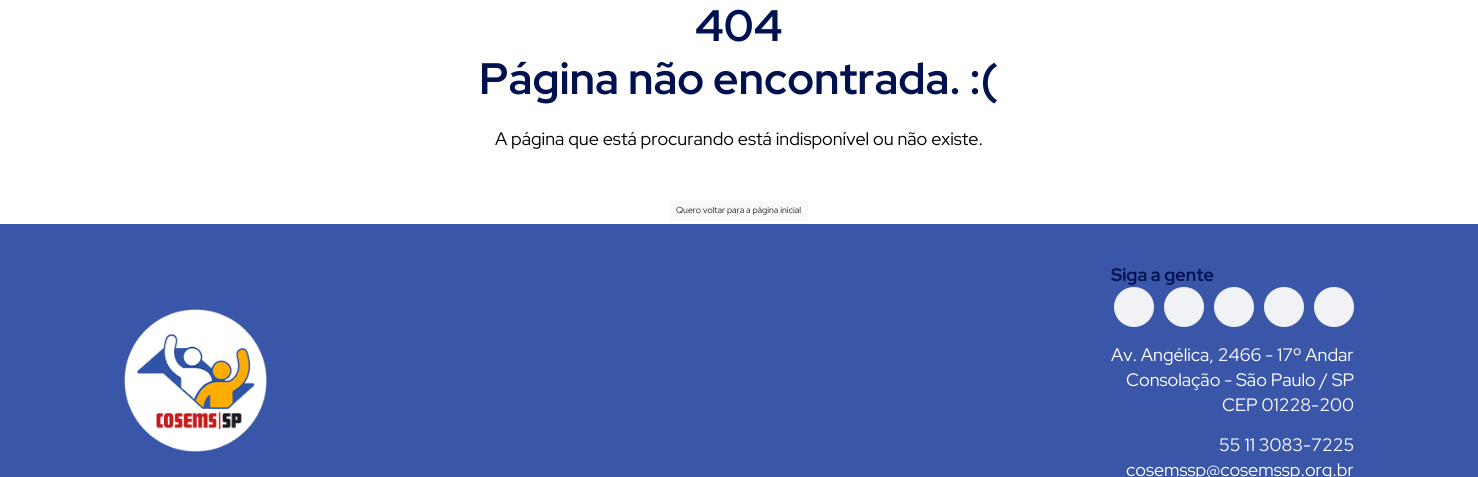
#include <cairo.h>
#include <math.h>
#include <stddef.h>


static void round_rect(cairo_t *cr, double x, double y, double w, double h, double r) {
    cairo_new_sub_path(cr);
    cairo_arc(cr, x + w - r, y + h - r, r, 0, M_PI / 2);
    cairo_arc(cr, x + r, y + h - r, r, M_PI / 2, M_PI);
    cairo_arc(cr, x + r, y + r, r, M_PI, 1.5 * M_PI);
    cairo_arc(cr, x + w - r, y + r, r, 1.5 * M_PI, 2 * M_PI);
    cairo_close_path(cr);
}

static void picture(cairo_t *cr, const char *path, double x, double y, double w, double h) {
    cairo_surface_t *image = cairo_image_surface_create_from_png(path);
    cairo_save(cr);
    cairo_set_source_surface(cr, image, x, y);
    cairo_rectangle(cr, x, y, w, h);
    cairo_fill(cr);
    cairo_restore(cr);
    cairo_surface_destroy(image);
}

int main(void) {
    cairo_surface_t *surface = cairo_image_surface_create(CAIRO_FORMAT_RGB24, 1478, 477);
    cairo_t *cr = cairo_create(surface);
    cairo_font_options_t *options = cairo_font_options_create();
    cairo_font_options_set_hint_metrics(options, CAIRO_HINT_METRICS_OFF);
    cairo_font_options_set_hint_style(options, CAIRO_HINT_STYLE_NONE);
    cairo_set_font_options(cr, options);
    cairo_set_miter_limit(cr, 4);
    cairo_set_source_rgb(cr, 1, 1, 1);
    cairo_paint(cr);
    cairo_select_font_face(cr, "Red Hat Display", CAIRO_FONT_SLANT_NORMAL, CAIRO_FONT_WEIGHT_BOLD);
    cairo_set_font_size(cr, 44);
    cairo_set_source_rgb(cr, 0, 0.067, 0.31);
    cairo_move_to(cr, 695, 41);
    cairo_show_text(cr, "404");
    cairo_move_to(cr, 479, 94);
    cairo_show_text(cr, "Página não encontrada. :(");
    cairo_select_font_face(cr, "Red Hat Display", CAIRO_FONT_SLANT_NORMAL, CAIRO_FONT_WEIGHT_NORMAL);
    cairo_set_font_size(cr, 18);
    cairo_set_source_rgb(cr, 0, 0, 0);
    cairo_move_to(cr, 495, 145);
    cairo_show_text(cr, "A página que está procurando está indisponível ou não existe.");
    cairo_set_source_rgb(cr, 0.973, 0.976, 0.98);
    round_rect(cr, 670, 201, 138, 20, 2);
    cairo_fill(cr);
    cairo_set_font_size(cr, 8.75);
    cairo_set_source_rgb(cr, 0.129, 0.145, 0.161);
    cairo_move_to(cr, 676, 213);
    cairo_show_text(cr, "Quero voltar para a página inicial");
    cairo_set_source_rgb(cr, 0.227, 0.337, 0.659);
    cairo_rectangle(cr, 0, 224, 1478, 253);
    cairo_fill(cr);
    picture(cr, "img1.png", 124, 309, 143, 143);
    cairo_select_font_face(cr, "Red Hat Display", CAIRO_FONT_SLANT_NORMAL, CAIRO_FONT_WEIGHT_BOLD);
    cairo_set_font_size(cr, 18);
    cairo_set_source_rgb(cr, 0, 0.067, 0.31);
    cairo_move_to(cr, 1111, 281);
    cairo_show_text(cr, "Siga a gente");
    cairo_set_source_rgb(cr, 0.941, 0.949, 0.961);
    cairo_new_path(cr);
    cairo_arc(cr, 1134, 307, 20, 0, 2 * M_PI);
    cairo_fill(cr);
    cairo_arc(cr, 1184, 307, 20, 0, 2 * M_PI);
    cairo_fill(cr);
    cairo_arc(cr, 1234, 307, 20, 0, 2 * M_PI);
    cairo_fill(cr);
    cairo_arc(cr, 1284, 307, 20, 0, 2 * M_PI);
    cairo_fill(cr);
    cairo_arc(cr, 1334, 307, 20, 0, 2 * M_PI);
    cairo_fill(cr);
    cairo_select_font_face(cr, "Red Hat Display", CAIRO_FONT_SLANT_NORMAL, CAIRO_FONT_WEIGHT_NORMAL);
    cairo_set_source_rgb(cr, 1, 1, 1);
    cairo_move_to(cr, 1111, 361);
    cairo_show_text(cr, "Av. Angélica, 2466 - 17º Andar");
    cairo_move_to(cr, 1126, 386);
    cairo_show_text(cr, "Consolação - São Paulo / SP");
    cairo_move_to(cr, 1222, 411);
    cairo_show_text(cr, "CEP 01228-200");
    cairo_move_to(cr, 1219, 451);
    cairo_show_text(cr, "55 11 3083-7225");
    cairo_move_to(cr, 1126, 476);
    cairo_show_text(cr, "cosemssp@cosemssp.org.br");
    cairo_surface_write_to_png(surface, "page.png");
    cairo_font_options_destroy(options);
    cairo_destroy(cr);
    cairo_surface_destroy(surface);
    return 0;
}
